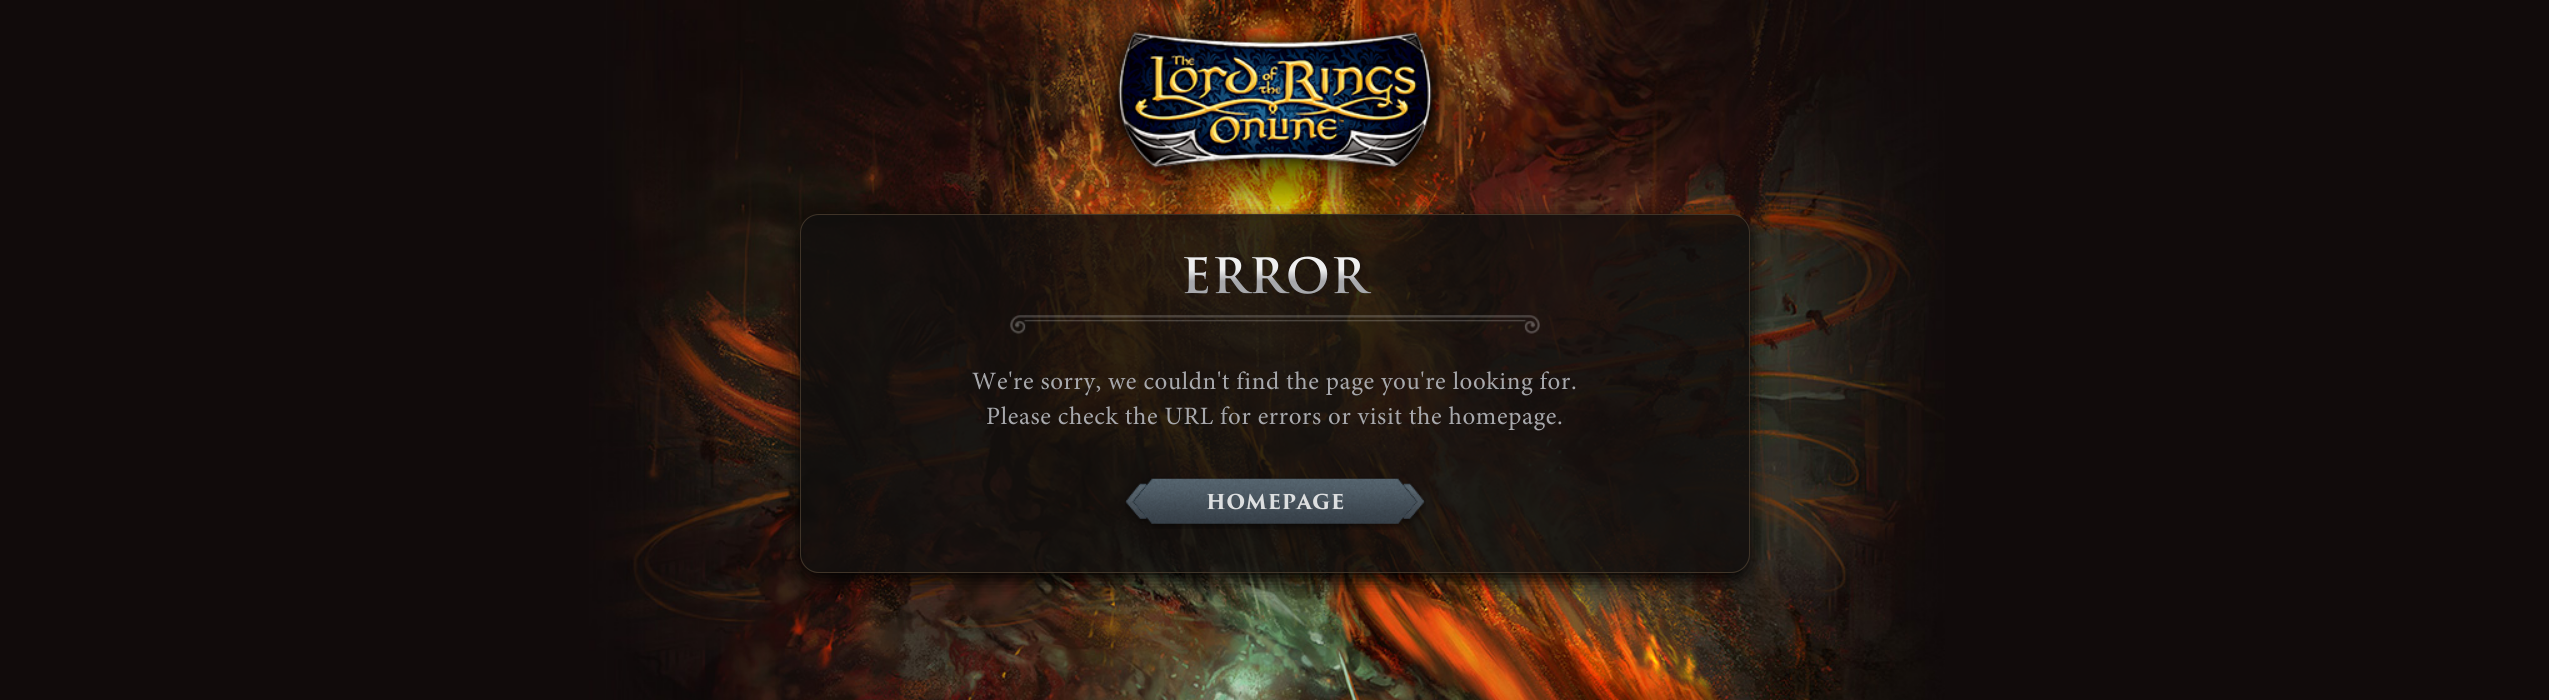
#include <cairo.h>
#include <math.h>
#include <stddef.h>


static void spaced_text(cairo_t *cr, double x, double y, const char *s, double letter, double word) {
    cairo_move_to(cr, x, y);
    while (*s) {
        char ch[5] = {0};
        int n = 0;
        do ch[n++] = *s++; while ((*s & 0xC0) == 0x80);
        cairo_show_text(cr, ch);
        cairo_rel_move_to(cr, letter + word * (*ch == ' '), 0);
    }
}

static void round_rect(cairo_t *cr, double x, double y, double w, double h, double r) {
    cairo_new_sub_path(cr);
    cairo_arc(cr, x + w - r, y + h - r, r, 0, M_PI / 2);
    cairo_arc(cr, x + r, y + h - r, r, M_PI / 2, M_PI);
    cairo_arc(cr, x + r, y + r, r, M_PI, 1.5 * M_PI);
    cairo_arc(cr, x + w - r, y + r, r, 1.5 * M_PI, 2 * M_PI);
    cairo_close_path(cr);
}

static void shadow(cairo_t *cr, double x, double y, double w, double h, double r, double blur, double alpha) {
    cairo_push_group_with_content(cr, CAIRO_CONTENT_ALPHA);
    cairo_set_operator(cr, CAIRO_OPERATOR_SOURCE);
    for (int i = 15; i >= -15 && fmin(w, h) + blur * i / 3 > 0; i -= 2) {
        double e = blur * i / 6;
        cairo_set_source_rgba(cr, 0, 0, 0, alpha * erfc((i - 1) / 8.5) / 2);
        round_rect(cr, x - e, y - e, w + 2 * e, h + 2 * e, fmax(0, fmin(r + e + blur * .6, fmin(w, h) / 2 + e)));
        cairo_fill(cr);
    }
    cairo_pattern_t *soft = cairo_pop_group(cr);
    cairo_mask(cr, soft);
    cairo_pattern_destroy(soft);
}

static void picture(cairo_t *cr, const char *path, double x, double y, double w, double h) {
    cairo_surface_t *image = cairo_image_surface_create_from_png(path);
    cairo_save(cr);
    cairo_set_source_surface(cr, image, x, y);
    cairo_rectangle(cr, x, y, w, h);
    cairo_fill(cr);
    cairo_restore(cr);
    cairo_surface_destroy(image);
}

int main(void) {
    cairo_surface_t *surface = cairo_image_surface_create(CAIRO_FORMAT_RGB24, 2549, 700);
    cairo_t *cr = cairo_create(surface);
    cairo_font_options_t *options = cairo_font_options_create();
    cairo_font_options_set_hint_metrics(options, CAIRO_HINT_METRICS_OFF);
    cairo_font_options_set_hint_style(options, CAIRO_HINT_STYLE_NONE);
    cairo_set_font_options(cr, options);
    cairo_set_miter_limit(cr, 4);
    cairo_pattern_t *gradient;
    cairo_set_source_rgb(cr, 0.067, 0.043, 0.043);
    cairo_paint(cr);
    picture(cr, "img1.png", 589, 0, 1356, 700);
    cairo_save(cr);
    cairo_set_fill_rule(cr, CAIRO_FILL_RULE_EVEN_ODD);
    cairo_new_path(cr);
    cairo_move_to(cr, 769, 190);
    cairo_line_to(cr, 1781, 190);
    cairo_line_to(cr, 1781, 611);
    cairo_line_to(cr, 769, 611);
    cairo_close_path(cr);
    cairo_move_to(cr, 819, 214);
    cairo_line_to(cr, 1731, 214);
    cairo_curve_to(cr, 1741.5, 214, 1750, 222.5, 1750, 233);
    cairo_line_to(cr, 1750, 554);
    cairo_curve_to(cr, 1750, 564.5, 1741.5, 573, 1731, 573);
    cairo_line_to(cr, 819, 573);
    cairo_curve_to(cr, 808.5, 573, 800, 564.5, 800, 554);
    cairo_line_to(cr, 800, 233);
    cairo_curve_to(cr, 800, 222.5, 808.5, 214, 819, 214);
    cairo_close_path(cr);
    cairo_clip(cr);
    cairo_set_source_rgb(cr, 0, 0, 0);
    shadow(cr, 800, 221, 950, 359, 19, 10, 1);
    cairo_restore(cr);
    cairo_set_source_rgba(cr, 0.067, 0.059, 0.051, 0.85);
    round_rect(cr, 800, 214, 950, 359, 19);
    cairo_fill(cr);
    round_rect(cr, 800.5, 214.5, 949, 358, 18.5);
    cairo_set_source_rgba(cr, 0.282, 0.231, 0.176, 0.85);
    cairo_set_line_width(cr, 1);
    cairo_stroke(cr);
    picture(cr, "img2.png", 1076, 9, 398, 211);
    cairo_select_font_face(cr, "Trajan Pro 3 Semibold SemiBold", CAIRO_FONT_SLANT_NORMAL, CAIRO_FONT_WEIGHT_NORMAL);
    cairo_set_font_size(cr, 47.5);
    cairo_set_source_rgb(cr, 0.2, 0.2, 0.2);
    spaced_text(cr, 1181, 293, "ERROR", 1, 0);
    gradient = cairo_pattern_create_linear(1275, 253, 1275, 300);
    cairo_pattern_add_color_stop_rgba(gradient, 0.35, 0.937, 0.937, 0.937, 1);
    cairo_pattern_add_color_stop_rgba(gradient, 0.6, 0.655, 0.659, 0.675, 1);
    cairo_set_source(cr, gradient);
    cairo_pattern_destroy(gradient);
    spaced_text(cr, 1181, 293, "ERROR", 1, 0);
    picture(cr, "img3.png", 1010, 315, 530, 19);
    cairo_select_font_face(cr, "Minion", CAIRO_FONT_SLANT_NORMAL, CAIRO_FONT_WEIGHT_NORMAL);
    cairo_set_font_size(cr, 25);
    cairo_set_source_rgb(cr, 0.655, 0.659, 0.675);
    spaced_text(cr, 972, 389, "We're sorry, we couldn't find the page you're looking for.", 0.62, 0);
    spaced_text(cr, 986, 424, "Please check the URL for errors or visit the homepage.", 0.62, 0);
    picture(cr, "img4.png", 1125, 477, 150, 52);
    picture(cr, "img5.png", 1275, 477, 151, 53);
    cairo_select_font_face(cr, "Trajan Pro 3", CAIRO_FONT_SLANT_NORMAL, CAIRO_FONT_WEIGHT_BOLD);
    cairo_set_font_size(cr, 20);
    cairo_set_source_rgb(cr, 0.867, 0.875, 0.878);
    spaced_text(cr, 1206, 509, "HOMEPAGE", 0.5, 0);
    cairo_surface_write_to_png(surface, "page.png");
    cairo_font_options_destroy(options);
    cairo_destroy(cr);
    cairo_surface_destroy(surface);
    return 0;
}
